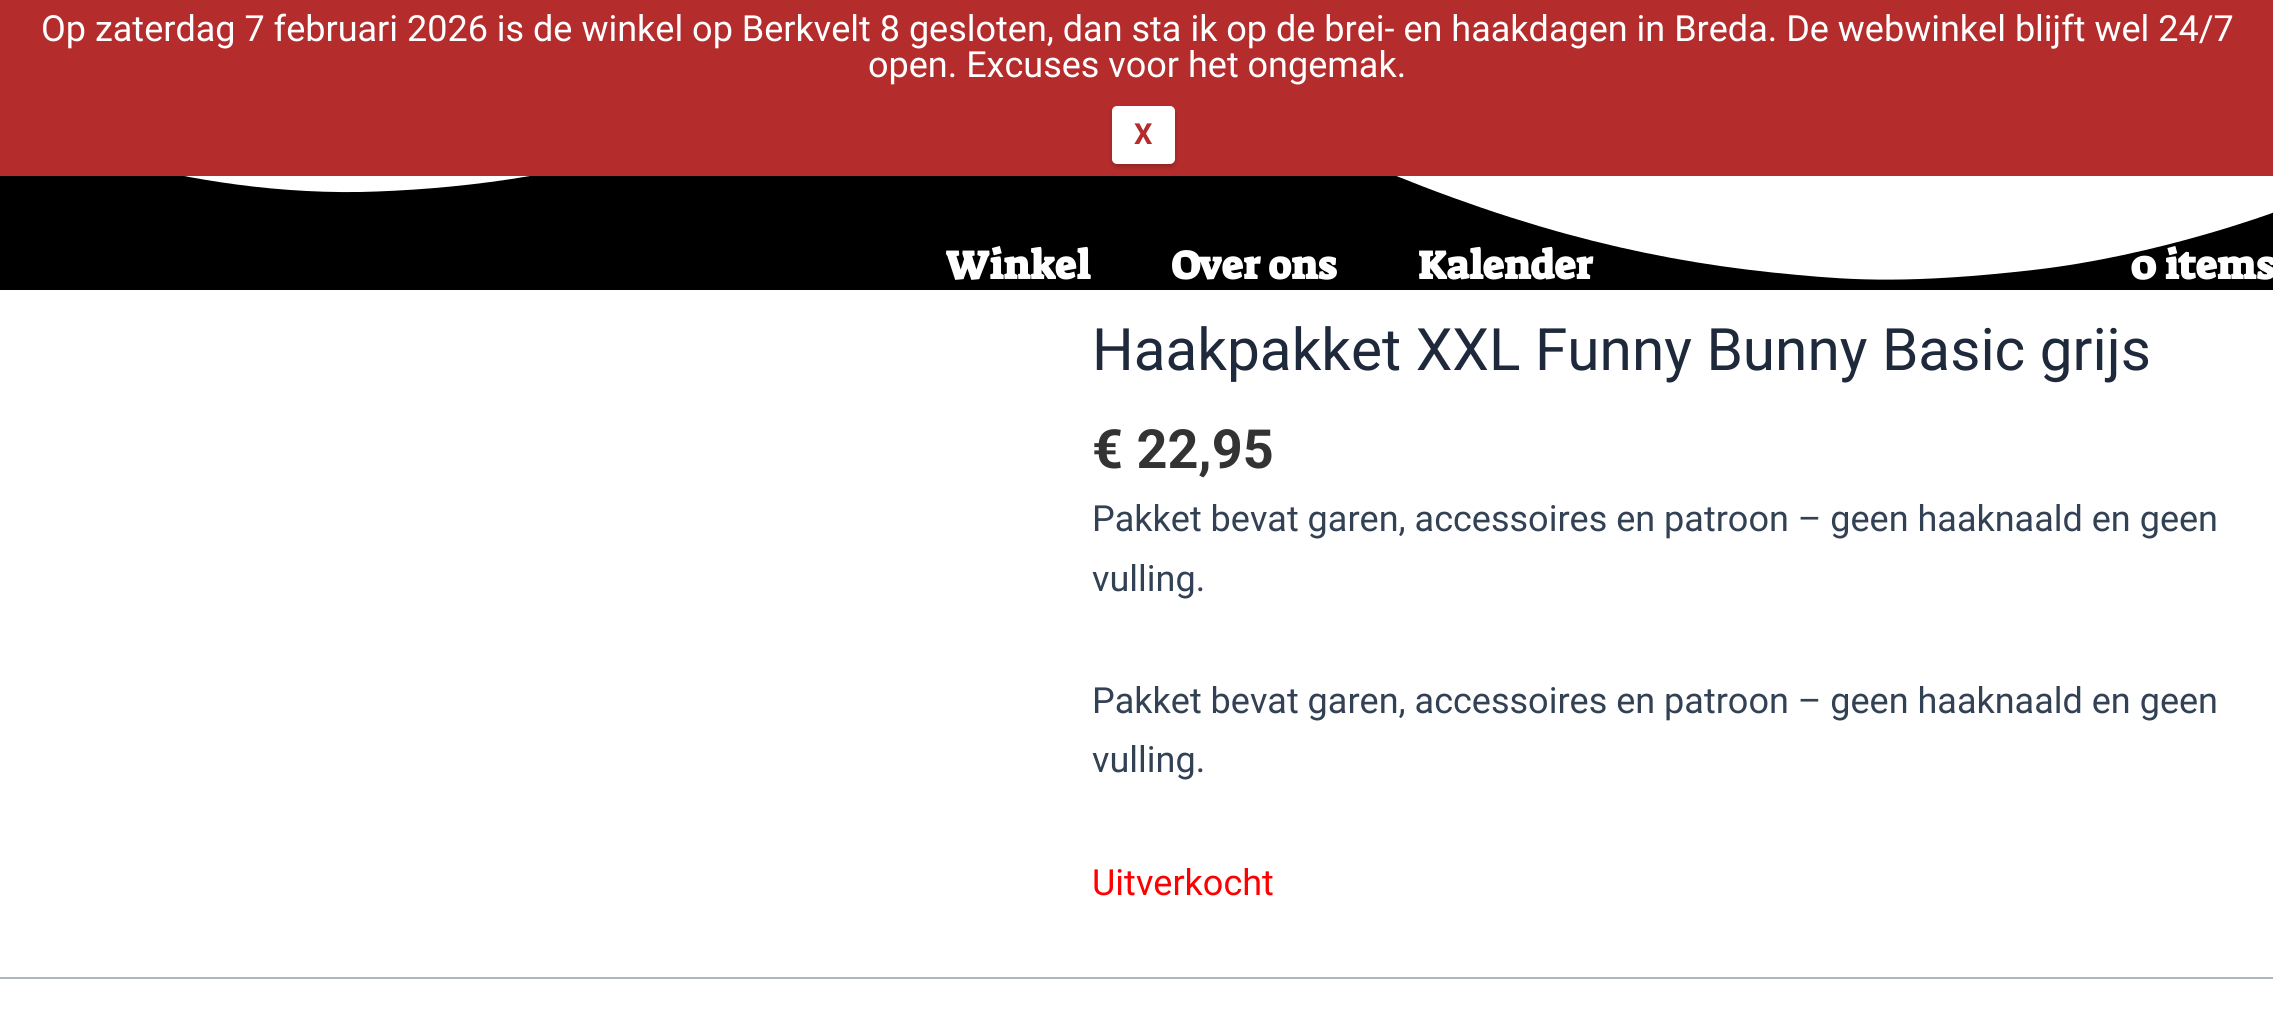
#include <cairo.h>
#include <math.h>
#include <stddef.h>


static void round_rect(cairo_t *cr, double x, double y, double w, double h, double r) {
    cairo_new_sub_path(cr);
    cairo_arc(cr, x + w - r, y + h - r, r, 0, M_PI / 2);
    cairo_arc(cr, x + r, y + h - r, r, M_PI / 2, M_PI);
    cairo_arc(cr, x + r, y + r, r, M_PI, 1.5 * M_PI);
    cairo_arc(cr, x + w - r, y + r, r, 1.5 * M_PI, 2 * M_PI);
    cairo_close_path(cr);
}

static void shadow(cairo_t *cr, double x, double y, double w, double h, double r, double blur, double alpha) {
    cairo_push_group_with_content(cr, CAIRO_CONTENT_ALPHA);
    cairo_set_operator(cr, CAIRO_OPERATOR_SOURCE);
    for (int i = 15; i >= -15 && fmin(w, h) + blur * i / 3 > 0; i -= 2) {
        double e = blur * i / 6;
        cairo_set_source_rgba(cr, 0, 0, 0, alpha * erfc((i - 1) / 8.5) / 2);
        round_rect(cr, x - e, y - e, w + 2 * e, h + 2 * e, fmax(0, fmin(r + e + blur * .6, fmin(w, h) / 2 + e)));
        cairo_fill(cr);
    }
    cairo_pattern_t *soft = cairo_pop_group(cr);
    cairo_mask(cr, soft);
    cairo_pattern_destroy(soft);
}

int main(void) {
    cairo_surface_t *surface = cairo_image_surface_create(CAIRO_FORMAT_RGB24, 2273, 1011);
    cairo_t *cr = cairo_create(surface);
    cairo_font_options_t *options = cairo_font_options_create();
    cairo_font_options_set_hint_metrics(options, CAIRO_HINT_METRICS_OFF);
    cairo_font_options_set_hint_style(options, CAIRO_HINT_STYLE_NONE);
    cairo_set_font_options(cr, options);
    cairo_set_miter_limit(cr, 4);
    cairo_set_source_rgb(cr, 1, 1, 1);
    cairo_paint(cr);
    cairo_set_source_rgb(cr, 0, 0, 0);
    cairo_new_path(cr);
    cairo_move_to(cr, 1798, 275);
    cairo_curve_to(cr, 1663, 263, 1532, 234, 1360, 161);
    cairo_curve_to(cr, 1293, 132, 1185, 91, 1131, 79);
    cairo_curve_to(cr, 1078, 68, 1012, 62, 960, 67);
    cairo_curve_to(cr, 936, 70, 908, 71, 846, 84);
    cairo_curve_to(cr, 784, 98, 713, 122, 665, 140);
    cairo_curve_to(cr, 571, 177, 449, 190, 360, 192);
    cairo_curve_to(cr, 164, 195, 0, 122, 0, 122);
    cairo_line_to(cr, 0, 290);
    cairo_line_to(cr, 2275, 290);
    cairo_line_to(cr, 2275, 212);
    cairo_curve_to(cr, 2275, 212, 2157, 256, 2033, 270);
    cairo_curve_to(cr, 1910, 284, 1852, 280, 1798, 275);
    cairo_close_path(cr);
    cairo_fill(cr);
    cairo_set_source_rgb(cr, 0.71, 0.173, 0.173);
    cairo_rectangle(cr, 0, 0, 2273, 176);
    cairo_fill(cr);
    cairo_select_font_face(cr, "Roboto", CAIRO_FONT_SLANT_NORMAL, CAIRO_FONT_WEIGHT_NORMAL);
    cairo_set_font_size(cr, 36);
    cairo_set_source_rgb(cr, 1, 1, 1);
    cairo_move_to(cr, 41, 41);
    cairo_show_text(cr, "Op zaterdag 7 februari 2026 is de winkel op Berkvelt 8 gesloten, dan sta ik op de brei- en haakdagen in Breda. De webwinkel blijft wel 24/7");
    cairo_move_to(cr, 868, 77);
    cairo_show_text(cr, "open. Excuses voor het ongemak.");
    cairo_set_source_rgb(cr, 0, 0, 0);
    shadow(cr, 1112, 108, 63, 59, 5, 2, 0.2);
    cairo_set_source_rgb(cr, 1, 1, 1);
    round_rect(cr, 1112, 106, 63, 58, 5);
    cairo_fill(cr);
    cairo_select_font_face(cr, "Roboto", CAIRO_FONT_SLANT_NORMAL, CAIRO_FONT_WEIGHT_BOLD);
    cairo_set_font_size(cr, 29);
    cairo_set_source_rgb(cr, 0.71, 0.173, 0.173);
    cairo_move_to(cr, 1134, 144);
    cairo_show_text(cr, "X");
    cairo_select_font_face(cr, "Suez One", CAIRO_FONT_SLANT_NORMAL, CAIRO_FONT_WEIGHT_BOLD);
    cairo_set_font_size(cr, 40.5);
    cairo_set_source_rgb(cr, 1, 1, 1);
    cairo_move_to(cr, 945, 279);
    cairo_show_text(cr, "Winkel");
    cairo_move_to(cr, 1171, 279);
    cairo_show_text(cr, "Over ons");
    cairo_move_to(cr, 1418, 279);
    cairo_show_text(cr, "Kalender");
    cairo_move_to(cr, 2130, 279);
    cairo_show_text(cr, "0 items");
    cairo_select_font_face(cr, "Roboto", CAIRO_FONT_SLANT_NORMAL, CAIRO_FONT_WEIGHT_NORMAL);
    cairo_set_font_size(cr, 58.5);
    cairo_set_source_rgb(cr, 0.118, 0.161, 0.231);
    cairo_move_to(cr, 1092, 370);
    cairo_show_text(cr, "Haakpakket XXL Funny Bunny Basic grijs");
    cairo_select_font_face(cr, "Roboto", CAIRO_FONT_SLANT_NORMAL, CAIRO_FONT_WEIGHT_BOLD);
    cairo_set_font_size(cr, 54);
    cairo_set_source_rgb(cr, 0.2, 0.2, 0.2);
    cairo_move_to(cr, 1092, 468);
    cairo_show_text(cr, "€ 22,95");
    cairo_select_font_face(cr, "Roboto", CAIRO_FONT_SLANT_NORMAL, CAIRO_FONT_WEIGHT_NORMAL);
    cairo_set_font_size(cr, 36);
    cairo_set_source_rgb(cr, 0.2, 0.255, 0.333);
    cairo_move_to(cr, 1092, 531);
    cairo_show_text(cr, "Pakket bevat garen, accessoires en patroon – geen haaknaald en geen");
    cairo_move_to(cr, 1092, 591);
    cairo_show_text(cr, "vulling.");
    cairo_move_to(cr, 1092, 713);
    cairo_show_text(cr, "Pakket bevat garen, accessoires en patroon – geen haaknaald en geen");
    cairo_move_to(cr, 1092, 772);
    cairo_show_text(cr, "vulling.");
    cairo_set_source_rgb(cr, 1, 0, 0);
    cairo_move_to(cr, 1092, 895);
    cairo_show_text(cr, "Uitverkocht");
    cairo_set_source_rgb(cr, 0.678, 0.714, 0.745);
    cairo_rectangle(cr, 0, 977, 2273, 2);
    cairo_fill(cr);
    cairo_surface_write_to_png(surface, "page.png");
    cairo_font_options_destroy(options);
    cairo_destroy(cr);
    cairo_surface_destroy(surface);
    return 0;
}
